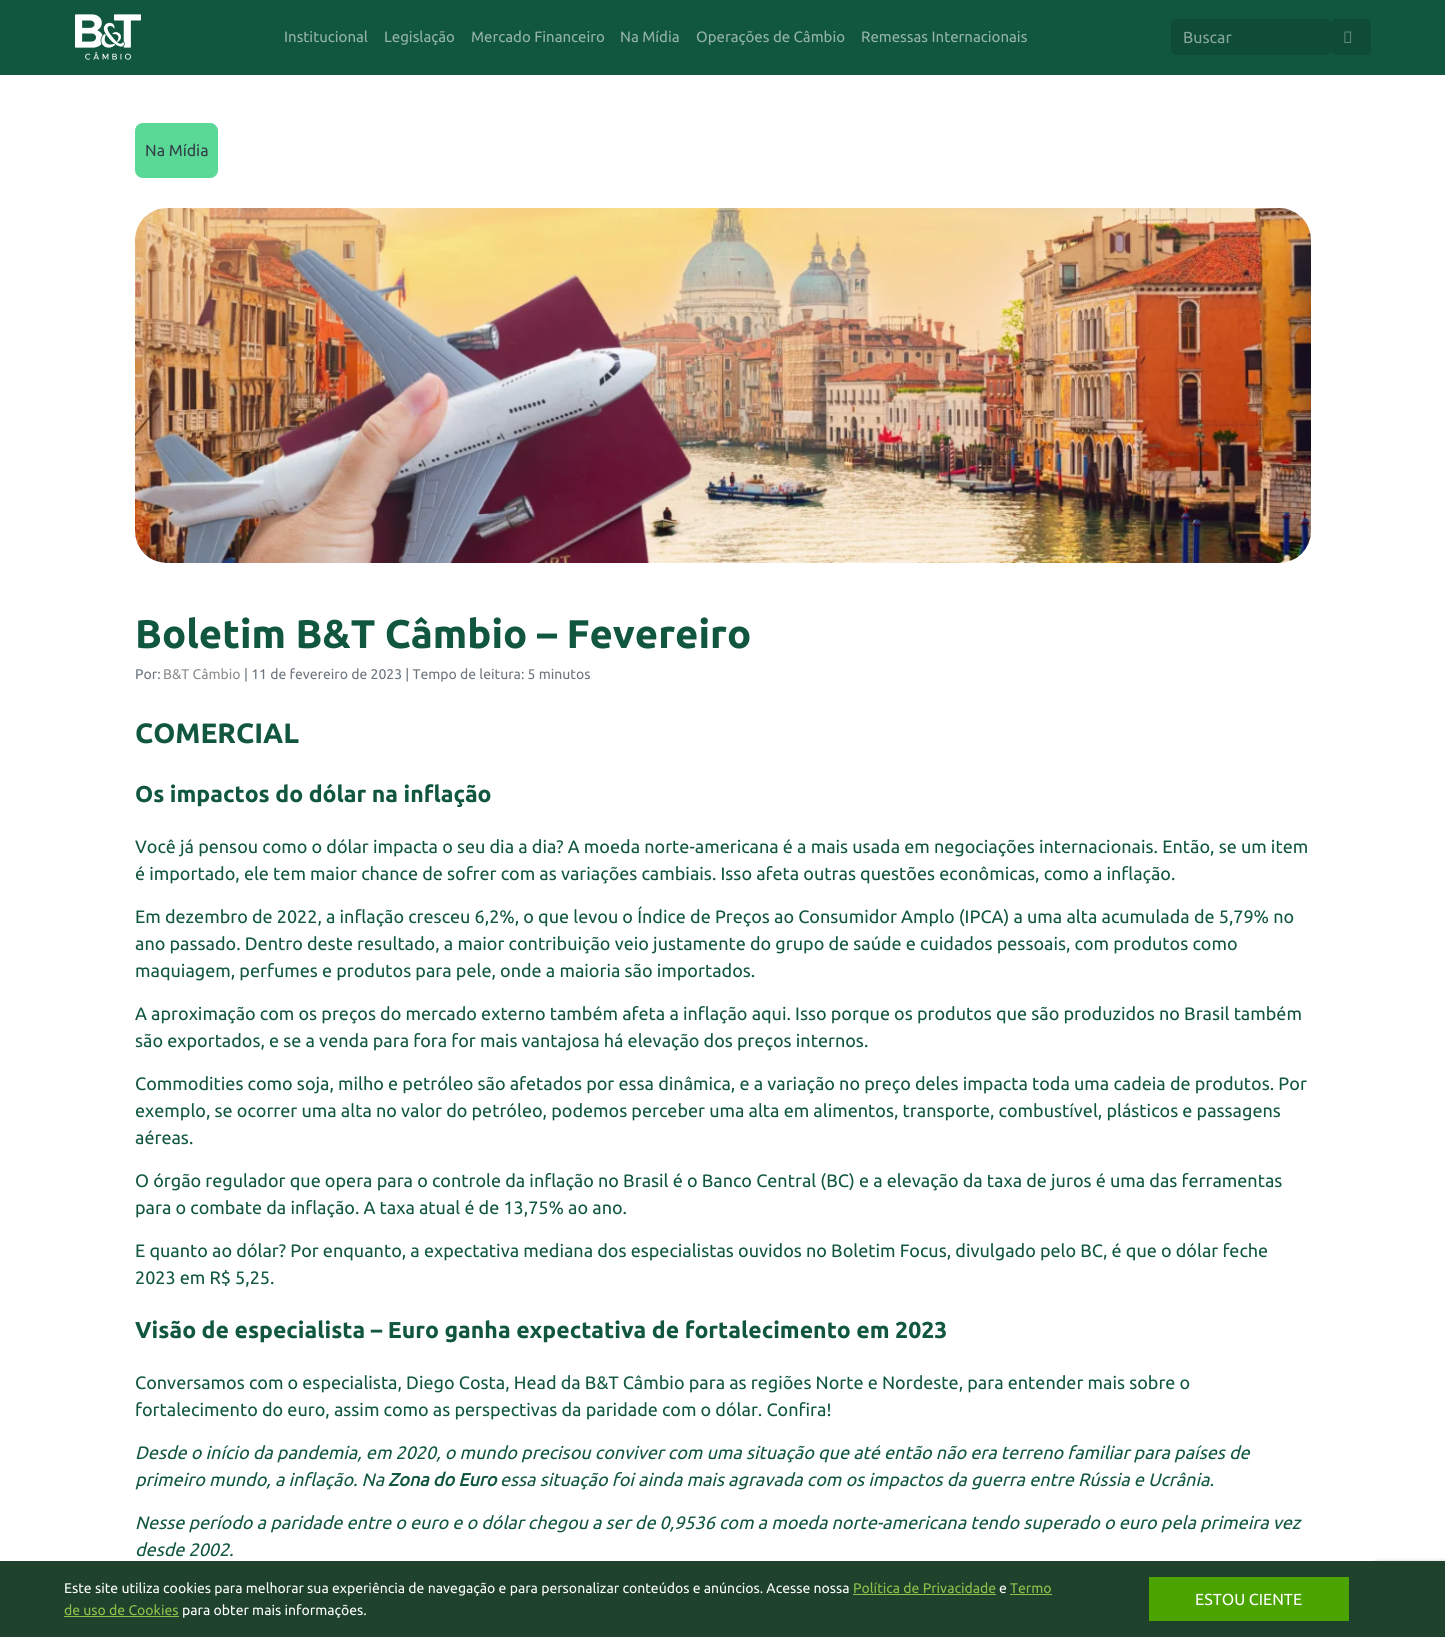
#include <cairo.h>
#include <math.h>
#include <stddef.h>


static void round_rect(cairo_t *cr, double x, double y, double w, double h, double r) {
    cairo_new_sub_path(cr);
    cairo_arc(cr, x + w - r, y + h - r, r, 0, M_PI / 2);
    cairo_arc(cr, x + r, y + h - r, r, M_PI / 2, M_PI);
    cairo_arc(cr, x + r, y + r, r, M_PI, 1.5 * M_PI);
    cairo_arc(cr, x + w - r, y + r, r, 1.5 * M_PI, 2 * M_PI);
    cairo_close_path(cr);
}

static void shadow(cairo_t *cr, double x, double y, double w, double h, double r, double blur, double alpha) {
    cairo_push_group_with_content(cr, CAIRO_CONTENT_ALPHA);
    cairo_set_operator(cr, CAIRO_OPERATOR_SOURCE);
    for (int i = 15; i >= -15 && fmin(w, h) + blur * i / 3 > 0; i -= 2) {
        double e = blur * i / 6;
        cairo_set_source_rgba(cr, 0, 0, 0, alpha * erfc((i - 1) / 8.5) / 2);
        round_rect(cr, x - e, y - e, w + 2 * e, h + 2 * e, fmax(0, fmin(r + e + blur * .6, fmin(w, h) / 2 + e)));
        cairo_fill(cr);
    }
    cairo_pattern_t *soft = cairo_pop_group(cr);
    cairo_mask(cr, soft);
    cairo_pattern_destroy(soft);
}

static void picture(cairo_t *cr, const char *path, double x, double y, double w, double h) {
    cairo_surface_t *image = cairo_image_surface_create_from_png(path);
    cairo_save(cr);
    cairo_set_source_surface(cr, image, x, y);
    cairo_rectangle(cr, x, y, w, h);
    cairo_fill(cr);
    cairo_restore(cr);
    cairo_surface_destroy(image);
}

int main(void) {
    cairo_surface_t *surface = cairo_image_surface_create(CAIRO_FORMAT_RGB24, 1445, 1637);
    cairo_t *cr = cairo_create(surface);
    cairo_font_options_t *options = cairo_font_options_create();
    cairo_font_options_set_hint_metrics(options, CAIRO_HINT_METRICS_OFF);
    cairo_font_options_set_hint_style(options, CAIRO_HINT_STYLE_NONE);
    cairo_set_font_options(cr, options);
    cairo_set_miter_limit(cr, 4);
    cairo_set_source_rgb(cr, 1, 1, 1);
    cairo_paint(cr);
    cairo_set_source_rgb(cr, 0.067, 0.341, 0.251);
    cairo_rectangle(cr, 0, 0, 1445, 75);
    cairo_fill(cr);
    picture(cr, "img1.png", 75, 14, 66, 46);
    cairo_select_font_face(cr, "Ubuntu", CAIRO_FONT_SLANT_NORMAL, CAIRO_FONT_WEIGHT_NORMAL);
    cairo_set_font_size(cr, 15);
    cairo_set_source_rgb(cr, 0.58, 0.702, 0.663);
    cairo_move_to(cr, 284, 42);
    cairo_show_text(cr, "Institucional");
    cairo_move_to(cr, 384, 42);
    cairo_show_text(cr, "Legislação");
    cairo_move_to(cr, 471, 42);
    cairo_show_text(cr, "Mercado Financeiro");
    cairo_move_to(cr, 620, 42);
    cairo_show_text(cr, "Na Mídia");
    cairo_move_to(cr, 696, 42);
    cairo_show_text(cr, "Operações de Câmbio");
    cairo_move_to(cr, 861, 42);
    cairo_show_text(cr, "Remessas Internacionais");
    cairo_set_source_rgb(cr, 0.055, 0.298, 0.216);
    round_rect(cr, 1171, 19, 160, 36, 5);
    cairo_fill(cr);
    cairo_set_font_size(cr, 16);
    cairo_set_source_rgb(cr, 0.529, 0.651, 0.608);
    cairo_move_to(cr, 1183, 43);
    cairo_show_text(cr, "Buscar");
    cairo_set_source_rgb(cr, 0.055, 0.298, 0.216);
    round_rect(cr, 1331, 19, 40, 36, 5);
    cairo_fill(cr);
    picture(cr, "img2.png", 1344, 31, 8, 12);
    cairo_set_source_rgb(cr, 0.353, 0.847, 0.588);
    round_rect(cr, 135, 123, 83, 55, 8);
    cairo_fill(cr);
    cairo_set_source_rgb(cr, 0.2, 0.247, 0.282);
    cairo_move_to(cr, 145, 156);
    cairo_show_text(cr, "Na Mídia");
    picture(cr, "img3.png", 135, 208, 1176, 355);
    cairo_select_font_face(cr, "Ubuntu", CAIRO_FONT_SLANT_NORMAL, CAIRO_FONT_WEIGHT_BOLD);
    cairo_set_font_size(cr, 40);
    cairo_set_source_rgb(cr, 0.067, 0.341, 0.251);
    cairo_move_to(cr, 135, 648);
    cairo_show_text(cr, "Boletim B&T Câmbio – Fevereiro");
    cairo_select_font_face(cr, "Ubuntu", CAIRO_FONT_SLANT_NORMAL, CAIRO_FONT_WEIGHT_NORMAL);
    cairo_set_font_size(cr, 14);
    cairo_set_source_rgb(cr, 0.424, 0.459, 0.49);
    cairo_move_to(cr, 135, 679);
    cairo_show_text(cr, "Por:");
    cairo_set_source_rgb(cr, 0.553, 0.553, 0.553);
    cairo_move_to(cr, 163, 679);
    cairo_show_text(cr, "B&T Câmbio");
    cairo_set_source_rgb(cr, 0.424, 0.459, 0.49);
    cairo_move_to(cr, 244, 679);
    cairo_show_text(cr, "| 11 de fevereiro de 2023 | Tempo de leitura: 5 minutos");
    cairo_select_font_face(cr, "Ubuntu", CAIRO_FONT_SLANT_NORMAL, CAIRO_FONT_WEIGHT_BOLD);
    cairo_set_font_size(cr, 28);
    cairo_set_source_rgb(cr, 0.067, 0.341, 0.251);
    cairo_move_to(cr, 135, 743);
    cairo_show_text(cr, "COMERCIAL");
    cairo_set_font_size(cr, 23);
    cairo_move_to(cr, 135, 802);
    cairo_show_text(cr, "Os impactos do dólar na inflação");
    cairo_select_font_face(cr, "Ubuntu", CAIRO_FONT_SLANT_NORMAL, CAIRO_FONT_WEIGHT_NORMAL);
    cairo_set_font_size(cr, 18);
    cairo_move_to(cr, 135, 853);
    cairo_show_text(cr, "Você já pensou como o dólar impacta o seu dia a dia? A moeda norte-americana é a mais usada em negociações internacionais. Então, se um item");
    cairo_move_to(cr, 135, 880);
    cairo_show_text(cr, "é importado, ele tem maior chance de sofrer com as variações cambiais. Isso afeta outras questões econômicas, como a inflação.");
    cairo_move_to(cr, 135, 923);
    cairo_show_text(cr, "Em dezembro de 2022, a inflação cresceu 6,2%, o que levou o Índice de Preços ao Consumidor Amplo (IPCA) a uma alta acumulada de 5,79% no");
    cairo_move_to(cr, 135, 950);
    cairo_show_text(cr, "ano passado. Dentro deste resultado, a maior contribuição veio justamente do grupo de saúde e cuidados pessoais, com produtos como");
    cairo_move_to(cr, 135, 977);
    cairo_show_text(cr, "maquiagem, perfumes e produtos para pele, onde a maioria são importados.");
    cairo_move_to(cr, 135, 1020);
    cairo_show_text(cr, "A aproximação com os preços do mercado externo também afeta a inflação aqui. Isso porque os produtos que são produzidos no Brasil também");
    cairo_move_to(cr, 135, 1047);
    cairo_show_text(cr, "são exportados, e se a venda para fora for mais vantajosa há elevação dos preços internos.");
    cairo_move_to(cr, 135, 1090);
    cairo_show_text(cr, "Commodities como soja, milho e petróleo são afetados por essa dinâmica, e a variação no preço deles impacta toda uma cadeia de produtos. Por");
    cairo_move_to(cr, 135, 1117);
    cairo_show_text(cr, "exemplo, se ocorrer uma alta no valor do petróleo, podemos perceber uma alta em alimentos, transporte, combustível, plásticos e passagens");
    cairo_move_to(cr, 135, 1144);
    cairo_show_text(cr, "aéreas.");
    cairo_move_to(cr, 135, 1187);
    cairo_show_text(cr, "O órgão regulador que opera para o controle da inflação no Brasil é o Banco Central (BC) e a elevação da taxa de juros é uma das ferramentas");
    cairo_move_to(cr, 135, 1214);
    cairo_show_text(cr, "para o combate da inflação. A taxa atual é de 13,75% ao ano.");
    cairo_move_to(cr, 135, 1257);
    cairo_show_text(cr, "E quanto ao dólar? Por enquanto, a expectativa mediana dos especialistas ouvidos no Boletim Focus, divulgado pelo BC, é que o dólar feche");
    cairo_move_to(cr, 135, 1284);
    cairo_show_text(cr, "2023 em R$ 5,25.");
    cairo_select_font_face(cr, "Ubuntu", CAIRO_FONT_SLANT_NORMAL, CAIRO_FONT_WEIGHT_BOLD);
    cairo_set_font_size(cr, 23);
    cairo_move_to(cr, 135, 1338);
    cairo_show_text(cr, "Visão de especialista – Euro ganha expectativa de fortalecimento em 2023");
    cairo_select_font_face(cr, "Ubuntu", CAIRO_FONT_SLANT_NORMAL, CAIRO_FONT_WEIGHT_NORMAL);
    cairo_set_font_size(cr, 18);
    cairo_move_to(cr, 135, 1389);
    cairo_show_text(cr, "Conversamos com o especialista, Diego Costa, Head da B&T Câmbio para as regiões Norte e Nordeste, para entender mais sobre o");
    cairo_move_to(cr, 135, 1416);
    cairo_show_text(cr, "fortalecimento do euro, assim como as perspectivas da paridade com o dólar. Confira!");
    cairo_select_font_face(cr, "Ubuntu", CAIRO_FONT_SLANT_ITALIC, CAIRO_FONT_WEIGHT_NORMAL);
    cairo_move_to(cr, 135, 1459);
    cairo_show_text(cr, "Desde o início da pandemia, em 2020, o mundo precisou conviver com uma situação que até então não era terreno familiar para países de");
    cairo_move_to(cr, 135, 1486);
    cairo_show_text(cr, "primeiro mundo, a inflação. Na");
    cairo_select_font_face(cr, "Ubuntu", CAIRO_FONT_SLANT_ITALIC, CAIRO_FONT_WEIGHT_BOLD);
    cairo_move_to(cr, 388, 1486);
    cairo_show_text(cr, "Zona do Euro");
    cairo_select_font_face(cr, "Ubuntu", CAIRO_FONT_SLANT_ITALIC, CAIRO_FONT_WEIGHT_NORMAL);
    cairo_move_to(cr, 500, 1486);
    cairo_show_text(cr, "essa situação foi ainda mais agravada com os impactos da guerra entre Rússia e Ucrânia.");
    cairo_move_to(cr, 135, 1529);
    cairo_show_text(cr, "Nesse período a paridade entre o euro e o dólar chegou a ser de 0,9536 com a moeda norte-americana tendo superado o euro pela primeira vez");
    cairo_move_to(cr, 135, 1556);
    cairo_show_text(cr, "desde 2002.");
    cairo_set_source_rgb(cr, 0.502, 0.502, 0.502);
    shadow(cr, 1375, 1563, 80, 60, 2, 2.5, 1);
    cairo_set_source_rgb(cr, 0.122, 0.259, 0.176);
    cairo_rectangle(cr, 0, 1561, 1445, 76);
    cairo_fill(cr);
    cairo_select_font_face(cr, "Ubuntu", CAIRO_FONT_SLANT_NORMAL, CAIRO_FONT_WEIGHT_NORMAL);
    cairo_set_font_size(cr, 14);
    cairo_set_source_rgb(cr, 1, 1, 1);
    cairo_move_to(cr, 64, 1593);
    cairo_show_text(cr, "Este site utiliza cookies para melhorar sua experiência de navegação e para personalizar conteúdos e anúncios. Acesse nossa");
    cairo_set_source_rgb(cr, 0.545, 0.765, 0.29);
    cairo_move_to(cr, 853, 1593);
    cairo_show_text(cr, "Política de Privacidade");
    cairo_rectangle(cr, 853, 1594, 143, 1);
    cairo_fill(cr);
    cairo_set_source_rgb(cr, 1, 1, 1);
    cairo_move_to(cr, 999, 1593);
    cairo_show_text(cr, "e");
    cairo_set_source_rgb(cr, 0.545, 0.765, 0.29);
    cairo_move_to(cr, 1010, 1593);
    cairo_show_text(cr, "Termo");
    cairo_rectangle(cr, 1010, 1594, 42, 1);
    cairo_fill(cr);
    cairo_move_to(cr, 64, 1615);
    cairo_show_text(cr, "de uso de Cookies");
    cairo_rectangle(cr, 64, 1616, 115, 1);
    cairo_fill(cr);
    cairo_set_source_rgb(cr, 1, 1, 1);
    cairo_move_to(cr, 182, 1615);
    cairo_show_text(cr, "para obter mais informações.");
    cairo_set_source_rgb(cr, 0.294, 0.643, 0);
    cairo_rectangle(cr, 1149, 1577, 200, 44);
    cairo_fill(cr);
    cairo_set_font_size(cr, 16);
    cairo_set_source_rgb(cr, 1, 1, 1);
    cairo_move_to(cr, 1195, 1605);
    cairo_show_text(cr, "ESTOU CIENTE");
    cairo_surface_write_to_png(surface, "page.png");
    cairo_font_options_destroy(options);
    cairo_destroy(cr);
    cairo_surface_destroy(surface);
    return 0;
}
